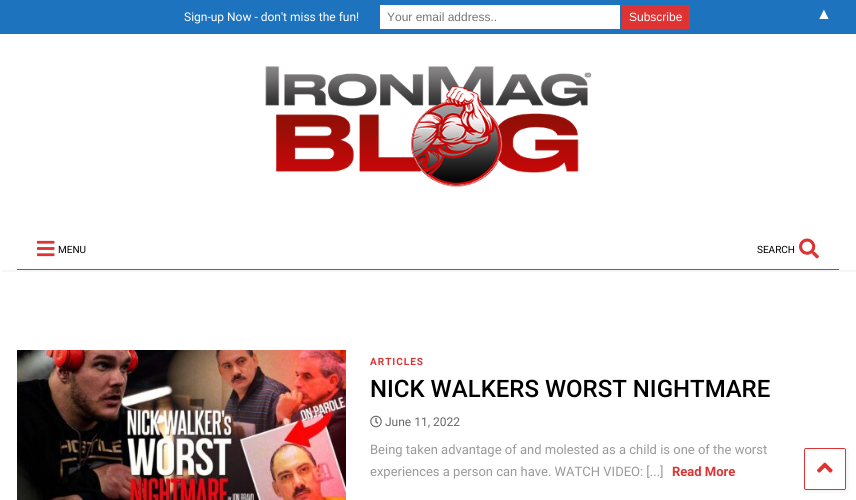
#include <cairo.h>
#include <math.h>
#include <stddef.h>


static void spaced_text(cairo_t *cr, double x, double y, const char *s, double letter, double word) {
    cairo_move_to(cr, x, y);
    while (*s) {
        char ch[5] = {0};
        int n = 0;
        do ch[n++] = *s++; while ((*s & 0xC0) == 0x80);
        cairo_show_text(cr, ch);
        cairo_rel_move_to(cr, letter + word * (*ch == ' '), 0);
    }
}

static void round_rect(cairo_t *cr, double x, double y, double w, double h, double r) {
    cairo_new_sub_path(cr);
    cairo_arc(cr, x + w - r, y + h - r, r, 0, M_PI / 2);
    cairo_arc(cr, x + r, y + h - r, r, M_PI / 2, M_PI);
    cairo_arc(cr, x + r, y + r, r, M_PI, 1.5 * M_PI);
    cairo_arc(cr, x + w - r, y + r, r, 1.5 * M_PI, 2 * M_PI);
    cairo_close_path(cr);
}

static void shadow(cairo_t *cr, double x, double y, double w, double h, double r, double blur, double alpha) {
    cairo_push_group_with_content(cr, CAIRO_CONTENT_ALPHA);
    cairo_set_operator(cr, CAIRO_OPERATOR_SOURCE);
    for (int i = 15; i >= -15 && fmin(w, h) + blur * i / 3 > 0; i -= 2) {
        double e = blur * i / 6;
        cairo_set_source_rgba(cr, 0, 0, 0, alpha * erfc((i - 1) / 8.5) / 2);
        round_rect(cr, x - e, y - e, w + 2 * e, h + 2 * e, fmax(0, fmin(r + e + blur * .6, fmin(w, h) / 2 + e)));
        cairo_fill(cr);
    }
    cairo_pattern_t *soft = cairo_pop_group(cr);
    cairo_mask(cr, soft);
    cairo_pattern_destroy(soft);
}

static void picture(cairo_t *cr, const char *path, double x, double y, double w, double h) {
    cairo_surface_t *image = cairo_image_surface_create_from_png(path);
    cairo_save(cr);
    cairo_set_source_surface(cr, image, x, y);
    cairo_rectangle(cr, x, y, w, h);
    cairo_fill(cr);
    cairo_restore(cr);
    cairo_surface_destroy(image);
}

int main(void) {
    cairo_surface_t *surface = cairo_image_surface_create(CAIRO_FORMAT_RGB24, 856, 500);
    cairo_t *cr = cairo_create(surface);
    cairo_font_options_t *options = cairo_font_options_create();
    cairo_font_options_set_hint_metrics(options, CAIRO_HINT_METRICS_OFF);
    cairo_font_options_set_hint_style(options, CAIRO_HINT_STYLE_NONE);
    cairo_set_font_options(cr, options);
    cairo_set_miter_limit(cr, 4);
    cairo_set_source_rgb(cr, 1, 1, 1);
    cairo_paint(cr);
    cairo_save(cr);
    cairo_rectangle(cr, 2, 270, 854, 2);
    cairo_clip(cr);
    cairo_set_source_rgb(cr, 0, 0, 0);
    shadow(cr, 2, 36, 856, 236, 0, 1.5, 0.05);
    cairo_restore(cr);
    cairo_set_source_rgb(cr, 0.118, 0.451, 0.745);
    cairo_rectangle(cr, 0, 0, 856, 34);
    cairo_fill(cr);
    cairo_select_font_face(cr, "Roboto", CAIRO_FONT_SLANT_NORMAL, CAIRO_FONT_WEIGHT_NORMAL);
    cairo_set_font_size(cr, 12);
    cairo_set_source_rgb(cr, 1, 1, 1);
    cairo_move_to(cr, 184, 21);
    cairo_show_text(cr, "Sign-up Now - don't miss the fun!");
    cairo_rectangle(cr, 380, 5, 240, 24);
    cairo_fill(cr);
    cairo_select_font_face(cr, "Liberation Sans", CAIRO_FONT_SLANT_NORMAL, CAIRO_FONT_WEIGHT_NORMAL);
    cairo_set_source_rgb(cr, 0.459, 0.459, 0.459);
    cairo_move_to(cr, 387, 21);
    cairo_show_text(cr, "Your email address..");
    cairo_set_source_rgb(cr, 0.867, 0.2, 0.2);
    cairo_rectangle(cr, 622, 5, 68, 24);
    cairo_fill(cr);
    cairo_set_source_rgb(cr, 1, 1, 1);
    cairo_move_to(cr, 629, 21);
    cairo_show_text(cr, "Subscribe");
    cairo_set_font_size(cr, 16);
    cairo_move_to(cr, 816, 19);
    cairo_show_text(cr, "▲");
    picture(cr, "img1.png", 265, 66, 327, 121);
    picture(cr, "img2.png", 37, 240, 18, 17);
    cairo_select_font_face(cr, "Roboto", CAIRO_FONT_SLANT_NORMAL, CAIRO_FONT_WEIGHT_NORMAL);
    cairo_set_font_size(cr, 10);
    cairo_set_source_rgb(cr, 0, 0, 0);
    cairo_move_to(cr, 58, 253);
    cairo_show_text(cr, "MENU");
    cairo_move_to(cr, 757, 253);
    cairo_show_text(cr, "SEARCH");
    picture(cr, "img3.png", 799, 238, 20, 21);
    cairo_set_source_rgb(cr, 0.867, 0.2, 0.2);
    cairo_rectangle(cr, 17, 269, 822, 1);
    cairo_fill(cr);
    picture(cr, "img4.png", 17, 350, 329, 150);
    cairo_select_font_face(cr, "Roboto", CAIRO_FONT_SLANT_NORMAL, CAIRO_FONT_WEIGHT_BOLD);
    spaced_text(cr, 370, 365, "ARTICLES", 1, 0);
    cairo_select_font_face(cr, "Roboto Medium", CAIRO_FONT_SLANT_NORMAL, CAIRO_FONT_WEIGHT_NORMAL);
    cairo_set_font_size(cr, 24);
    cairo_set_source_rgb(cr, 0, 0, 0);
    cairo_move_to(cr, 370, 397);
    cairo_show_text(cr, "NICK WALKERS WORST NIGHTMARE");
    picture(cr, "img5.png", 370, 415, 12, 13);
    cairo_select_font_face(cr, "Roboto", CAIRO_FONT_SLANT_NORMAL, CAIRO_FONT_WEIGHT_NORMAL);
    cairo_set_font_size(cr, 12);
    cairo_set_source_rgb(cr, 0.4, 0.4, 0.4);
    cairo_move_to(cr, 385, 426);
    cairo_show_text(cr, "June 11, 2022");
    cairo_set_font_size(cr, 13);
    cairo_set_source_rgb(cr, 0.6, 0.6, 0.6);
    cairo_move_to(cr, 370, 454);
    cairo_show_text(cr, "Being taken advantage of and molested as a child is one of the worst");
    cairo_move_to(cr, 370, 476);
    cairo_show_text(cr, "experiences a person can have. WATCH VIDEO: [...]");
    cairo_select_font_face(cr, "Roboto", CAIRO_FONT_SLANT_NORMAL, CAIRO_FONT_WEIGHT_BOLD);
    cairo_set_source_rgb(cr, 0.867, 0.2, 0.2);
    cairo_move_to(cr, 672, 476);
    cairo_show_text(cr, "Read More");
    cairo_set_source_rgb(cr, 0, 0, 0);
    shadow(cr, 806, 450, 42, 42, 2, 1.5, 0.05);
    cairo_set_source_rgb(cr, 1, 1, 1);
    round_rect(cr, 804.5, 448.5, 41, 41, 1.5);
    cairo_fill_preserve(cr);
    cairo_set_source_rgb(cr, 0.867, 0.2, 0.2);
    cairo_set_line_width(cr, 1);
    cairo_stroke(cr);
    picture(cr, "img6.png", 817, 462, 16, 11);
    cairo_surface_write_to_png(surface, "page.png");
    cairo_font_options_destroy(options);
    cairo_destroy(cr);
    cairo_surface_destroy(surface);
    return 0;
}
